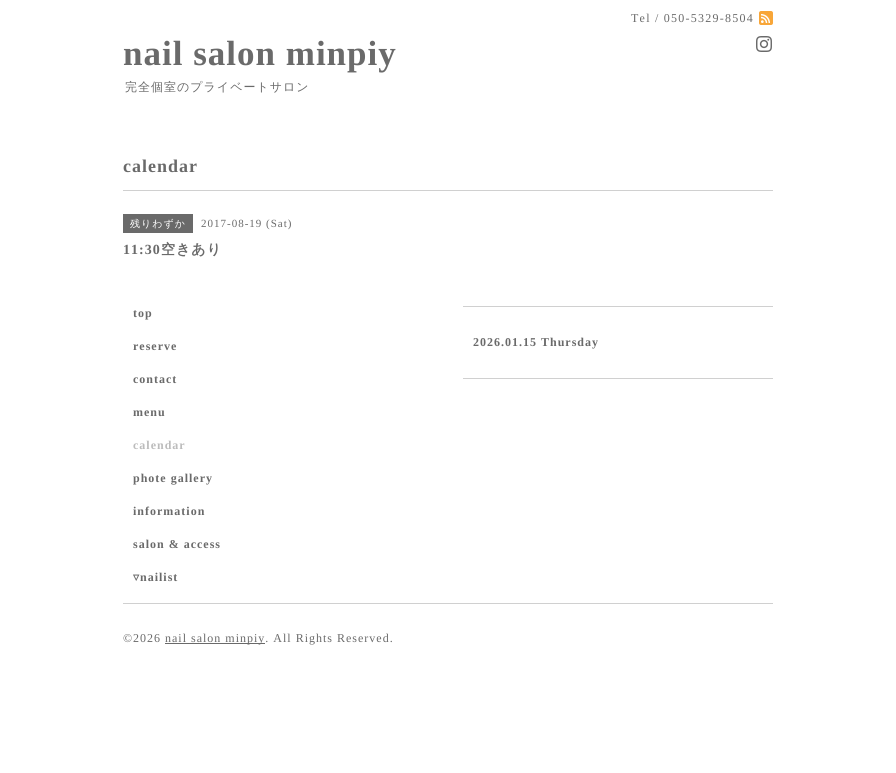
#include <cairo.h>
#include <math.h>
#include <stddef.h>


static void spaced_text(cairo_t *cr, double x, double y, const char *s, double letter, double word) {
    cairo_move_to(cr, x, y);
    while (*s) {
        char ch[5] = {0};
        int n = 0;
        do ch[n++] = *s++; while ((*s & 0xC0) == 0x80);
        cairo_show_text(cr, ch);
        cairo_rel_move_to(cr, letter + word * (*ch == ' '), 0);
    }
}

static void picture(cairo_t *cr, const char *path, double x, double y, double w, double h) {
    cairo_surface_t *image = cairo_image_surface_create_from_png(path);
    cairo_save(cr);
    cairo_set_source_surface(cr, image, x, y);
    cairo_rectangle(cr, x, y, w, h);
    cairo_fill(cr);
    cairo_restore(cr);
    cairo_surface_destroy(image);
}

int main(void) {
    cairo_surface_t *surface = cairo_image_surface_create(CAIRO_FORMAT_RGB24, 896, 773);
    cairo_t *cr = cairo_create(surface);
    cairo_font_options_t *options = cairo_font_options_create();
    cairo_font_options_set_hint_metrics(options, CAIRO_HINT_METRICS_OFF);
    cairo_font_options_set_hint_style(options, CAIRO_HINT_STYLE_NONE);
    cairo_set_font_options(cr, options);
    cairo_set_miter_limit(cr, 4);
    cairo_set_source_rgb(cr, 1, 1, 1);
    cairo_paint(cr);
    cairo_select_font_face(cr, "Liberation Serif", CAIRO_FONT_SLANT_NORMAL, CAIRO_FONT_WEIGHT_NORMAL);
    cairo_set_font_size(cr, 12);
    cairo_set_source_rgb(cr, 0.416, 0.416, 0.416);
    spaced_text(cr, 631, 22, "Tel / 050-5329-8504", 1.25, 0);
    picture(cr, "img1.png", 759, 11, 14, 14);
    picture(cr, "img2.png", 756, 36, 16, 16);
    cairo_select_font_face(cr, "Liberation Serif", CAIRO_FONT_SLANT_NORMAL, CAIRO_FONT_WEIGHT_BOLD);
    cairo_set_font_size(cr, 35);
    spaced_text(cr, 123, 65, "nail salon minpiy", 1, 0);
    cairo_select_font_face(cr, "WenQuanYi Zen Hei Medium", CAIRO_FONT_SLANT_NORMAL, CAIRO_FONT_WEIGHT_NORMAL);
    cairo_set_font_size(cr, 12);
    spaced_text(cr, 125, 91, "完全個室のプライベートサロン", 1, 0);
    cairo_select_font_face(cr, "Liberation Serif", CAIRO_FONT_SLANT_NORMAL, CAIRO_FONT_WEIGHT_BOLD);
    cairo_set_font_size(cr, 18);
    spaced_text(cr, 123, 172, "calendar", 1, 0);
    cairo_set_source_rgb(cr, 0.816, 0.816, 0.816);
    cairo_rectangle(cr, 123, 190, 650, 1);
    cairo_fill(cr);
    cairo_set_source_rgb(cr, 0.416, 0.416, 0.416);
    cairo_rectangle(cr, 123, 214, 70, 19);
    cairo_fill(cr);
    cairo_select_font_face(cr, "WenQuanYi Zen Hei Medium", CAIRO_FONT_SLANT_NORMAL, CAIRO_FONT_WEIGHT_NORMAL);
    cairo_set_font_size(cr, 10);
    cairo_set_source_rgb(cr, 1, 1, 1);
    spaced_text(cr, 130, 227, "残りわずか", 1, 0);
    cairo_select_font_face(cr, "Liberation Serif", CAIRO_FONT_SLANT_NORMAL, CAIRO_FONT_WEIGHT_NORMAL);
    cairo_set_font_size(cr, 11);
    cairo_set_source_rgb(cr, 0.416, 0.416, 0.416);
    spaced_text(cr, 201, 227, "2017-08-19 (Sat)", 1, 0);
    cairo_select_font_face(cr, "Liberation Serif", CAIRO_FONT_SLANT_NORMAL, CAIRO_FONT_WEIGHT_BOLD);
    cairo_set_font_size(cr, 14);
    spaced_text(cr, 123, 254, "11:30", 1, 0);
    cairo_select_font_face(cr, "WenQuanYi Zen Hei", CAIRO_FONT_SLANT_NORMAL, CAIRO_FONT_WEIGHT_BOLD);
    spaced_text(cr, 161, 254, "空きあり", 1, 0);
    cairo_select_font_face(cr, "Liberation Serif", CAIRO_FONT_SLANT_NORMAL, CAIRO_FONT_WEIGHT_BOLD);
    cairo_set_font_size(cr, 12);
    spaced_text(cr, 133, 317, "top", 1, 0);
    spaced_text(cr, 133, 350, "reserve", 1, 0);
    spaced_text(cr, 133, 383, "contact", 1, 0);
    spaced_text(cr, 133, 416, "menu", 1, 0);
    cairo_set_source_rgb(cr, 0.737, 0.737, 0.737);
    spaced_text(cr, 133, 449, "calendar", 1, 0);
    cairo_set_source_rgb(cr, 0.416, 0.416, 0.416);
    spaced_text(cr, 133, 482, "phote gallery", 1, 0);
    spaced_text(cr, 133, 515, "information", 1, 0);
    spaced_text(cr, 133, 548, "salon & access", 1, 0);
    cairo_select_font_face(cr, "DejaVu Sans", CAIRO_FONT_SLANT_NORMAL, CAIRO_FONT_WEIGHT_BOLD);
    spaced_text(cr, 133, 581, "▿", 1, 0);
    cairo_select_font_face(cr, "Liberation Serif", CAIRO_FONT_SLANT_NORMAL, CAIRO_FONT_WEIGHT_BOLD);
    spaced_text(cr, 140, 581, "nailist", 1, 0);
    cairo_set_source_rgb(cr, 0.816, 0.816, 0.816);
    cairo_rectangle(cr, 463, 306, 310, 1);
    cairo_fill(cr);
    cairo_rectangle(cr, 463, 378, 310, 1);
    cairo_fill(cr);
    cairo_set_source_rgb(cr, 0.416, 0.416, 0.416);
    spaced_text(cr, 473, 346, "2026.01.15 Thursday", 1, 0);
    cairo_set_source_rgb(cr, 0.816, 0.816, 0.816);
    cairo_rectangle(cr, 123, 603, 650, 1);
    cairo_fill(cr);
    cairo_select_font_face(cr, "Liberation Serif", CAIRO_FONT_SLANT_NORMAL, CAIRO_FONT_WEIGHT_NORMAL);
    cairo_set_source_rgb(cr, 0.416, 0.416, 0.416);
    spaced_text(cr, 123, 642, "©2026", 1, 0);
    cairo_rectangle(cr, 165, 643, 100, 1);
    cairo_fill(cr);
    spaced_text(cr, 165, 642, "nail salon minpiy. All Rights Reserved.", 1, 0);
    cairo_surface_write_to_png(surface, "page.png");
    cairo_font_options_destroy(options);
    cairo_destroy(cr);
    cairo_surface_destroy(surface);
    return 0;
}
